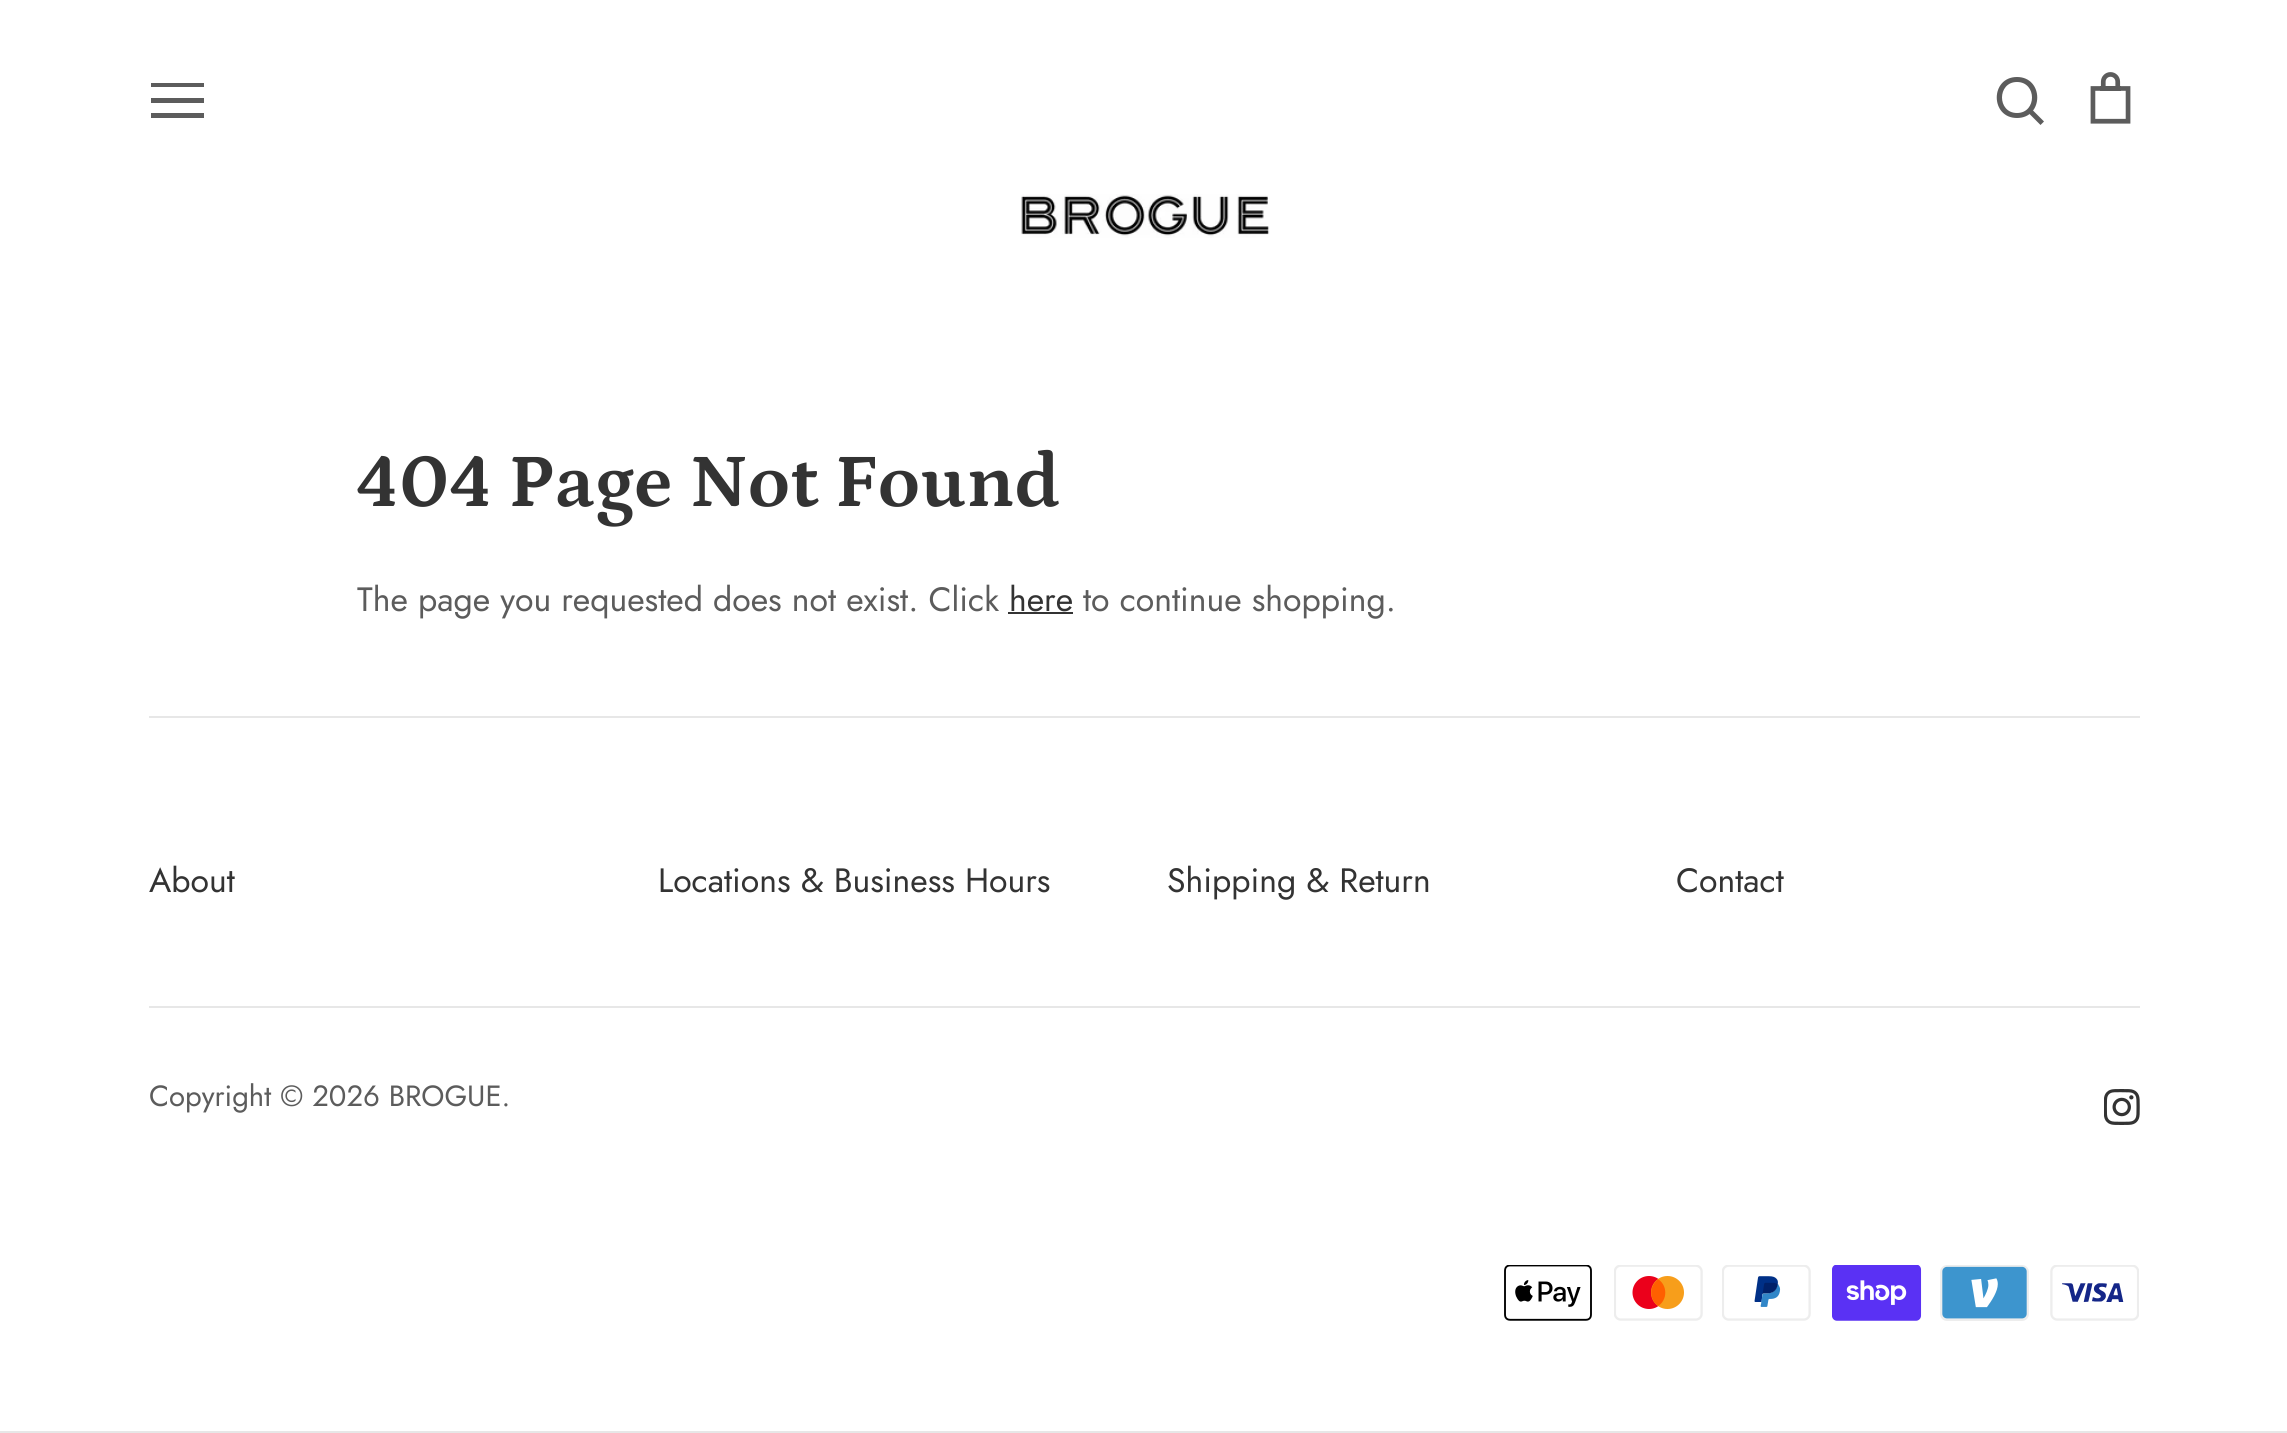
#include <cairo.h>
#include <math.h>
#include <stddef.h>


static void picture(cairo_t *cr, const char *path, double x, double y, double w, double h) {
    cairo_surface_t *image = cairo_image_surface_create_from_png(path);
    cairo_save(cr);
    cairo_set_source_surface(cr, image, x, y);
    cairo_rectangle(cr, x, y, w, h);
    cairo_fill(cr);
    cairo_restore(cr);
    cairo_surface_destroy(image);
}

int main(void) {
    cairo_surface_t *surface = cairo_image_surface_create(CAIRO_FORMAT_RGB24, 2287, 1433);
    cairo_t *cr = cairo_create(surface);
    cairo_font_options_t *options = cairo_font_options_create();
    cairo_font_options_set_hint_metrics(options, CAIRO_HINT_METRICS_OFF);
    cairo_font_options_set_hint_style(options, CAIRO_HINT_STYLE_NONE);
    cairo_set_font_options(cr, options);
    cairo_set_miter_limit(cr, 4);
    cairo_set_source_rgb(cr, 1, 1, 1);
    cairo_paint(cr);
    cairo_set_source_rgb(cr, 0.361, 0.361, 0.361);
    cairo_rectangle(cr, 151, 83, 53, 4);
    cairo_fill(cr);
    cairo_rectangle(cr, 151, 98, 53, 5);
    cairo_fill(cr);
    cairo_rectangle(cr, 151, 113, 53, 5);
    cairo_fill(cr);
    cairo_new_path(cr);
    cairo_move_to(cr, 2044, 121.5);
    cairo_line_to(cr, 2040.5, 125);
    cairo_line_to(cr, 2029, 113.5);
    cairo_line_to(cr, 2032.5, 110);
    cairo_close_path(cr);
    cairo_fill(cr);
    cairo_new_path(cr);
    cairo_move_to(cr, 2017, 118);
    cairo_curve_to(cr, 1990, 118, 1990, 77, 2017, 77);
    cairo_curve_to(cr, 2044, 77, 2044, 118, 2017, 118);
    cairo_close_path(cr);
    cairo_move_to(cr, 2017, 113);
    cairo_curve_to(cr, 2037, 113, 2037, 82, 2017, 82);
    cairo_curve_to(cr, 1997, 82, 1997, 113, 2017, 113);
    cairo_close_path(cr);
    cairo_fill(cr);
    picture(cr, "img1.png", 2090, 72, 41, 52);
    picture(cr, "img2.png", 1021, 194, 249, 44);
    cairo_set_source_rgb(cr, 0.906, 0.906, 0.906);
    cairo_rectangle(cr, 0, 1431, 2287, 2);
    cairo_fill(cr);
    cairo_select_font_face(cr, "Petrona", CAIRO_FONT_SLANT_NORMAL, CAIRO_FONT_WEIGHT_BOLD);
    cairo_set_font_size(cr, 76.5);
    cairo_set_source_rgb(cr, 0.2, 0.2, 0.2);
    cairo_move_to(cr, 357, 506);
    cairo_show_text(cr, "404 Page Not Found");
    cairo_select_font_face(cr, "Jost", CAIRO_FONT_SLANT_NORMAL, CAIRO_FONT_WEIGHT_NORMAL);
    cairo_set_font_size(cr, 33.75);
    cairo_set_source_rgb(cr, 0.361, 0.361, 0.361);
    cairo_move_to(cr, 357, 611);
    cairo_show_text(cr, "The page you requested does not exist. Click");
    cairo_set_source_rgb(cr, 0.2, 0.2, 0.2);
    cairo_move_to(cr, 1009, 611);
    cairo_show_text(cr, "here");
    cairo_rectangle(cr, 1008, 612, 65, 2);
    cairo_fill(cr);
    cairo_set_source_rgb(cr, 0.361, 0.361, 0.361);
    cairo_move_to(cr, 1083, 611);
    cairo_show_text(cr, "to continue shopping.");
    cairo_set_source_rgb(cr, 0.906, 0.906, 0.906);
    cairo_rectangle(cr, 149, 716, 1991, 2);
    cairo_fill(cr);
    cairo_set_source_rgb(cr, 0.2, 0.2, 0.2);
    cairo_move_to(cr, 149, 892);
    cairo_show_text(cr, "About");
    cairo_move_to(cr, 658, 892);
    cairo_show_text(cr, "Locations & Business Hours");
    cairo_move_to(cr, 1167, 892);
    cairo_show_text(cr, "Shipping & Return");
    cairo_move_to(cr, 1676, 892);
    cairo_show_text(cr, "Contact");
    cairo_set_source_rgb(cr, 0.906, 0.906, 0.906);
    cairo_rectangle(cr, 149, 1006, 1991, 2);
    cairo_fill(cr);
    cairo_set_font_size(cr, 29.25);
    cairo_set_source_rgb(cr, 0.361, 0.361, 0.361);
    cairo_move_to(cr, 149, 1106);
    cairo_show_text(cr, "Copyright © 2026 BROGUE.");
    picture(cr, "img3.png", 2104, 1089, 36, 36);
    picture(cr, "img4.png", 1504, 1265, 88, 56);
    picture(cr, "img5.png", 1614, 1265, 89, 56);
    picture(cr, "img6.png", 1722, 1265, 89, 56);
    picture(cr, "img7.png", 1832, 1265, 90, 56);
    picture(cr, "img8.png", 1940, 1265, 89, 56);
    picture(cr, "img9.png", 2050, 1265, 89, 56);
    cairo_surface_write_to_png(surface, "page.png");
    cairo_font_options_destroy(options);
    cairo_destroy(cr);
    cairo_surface_destroy(surface);
    return 0;
}
